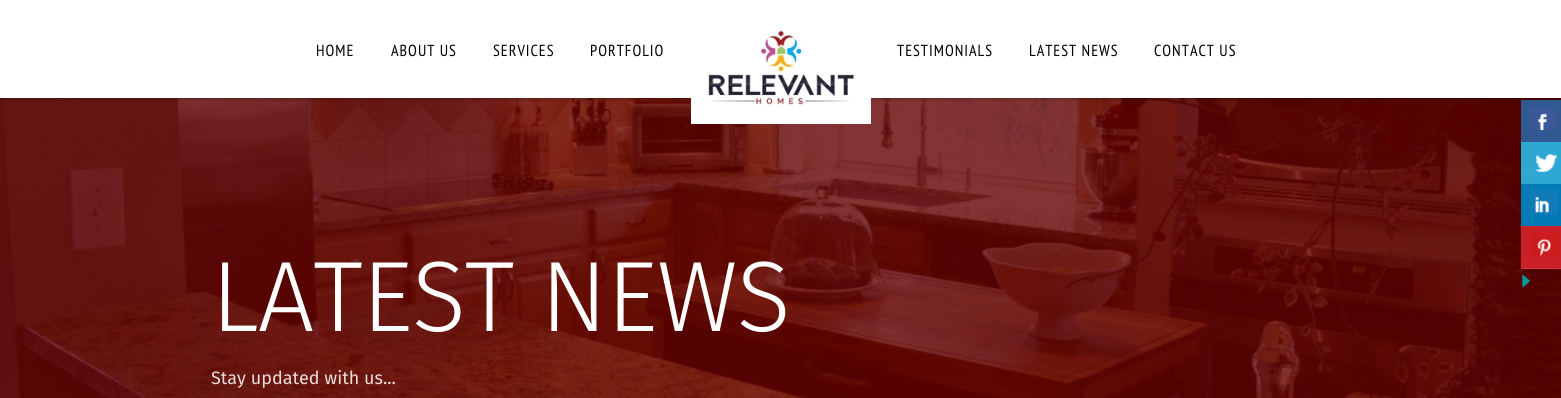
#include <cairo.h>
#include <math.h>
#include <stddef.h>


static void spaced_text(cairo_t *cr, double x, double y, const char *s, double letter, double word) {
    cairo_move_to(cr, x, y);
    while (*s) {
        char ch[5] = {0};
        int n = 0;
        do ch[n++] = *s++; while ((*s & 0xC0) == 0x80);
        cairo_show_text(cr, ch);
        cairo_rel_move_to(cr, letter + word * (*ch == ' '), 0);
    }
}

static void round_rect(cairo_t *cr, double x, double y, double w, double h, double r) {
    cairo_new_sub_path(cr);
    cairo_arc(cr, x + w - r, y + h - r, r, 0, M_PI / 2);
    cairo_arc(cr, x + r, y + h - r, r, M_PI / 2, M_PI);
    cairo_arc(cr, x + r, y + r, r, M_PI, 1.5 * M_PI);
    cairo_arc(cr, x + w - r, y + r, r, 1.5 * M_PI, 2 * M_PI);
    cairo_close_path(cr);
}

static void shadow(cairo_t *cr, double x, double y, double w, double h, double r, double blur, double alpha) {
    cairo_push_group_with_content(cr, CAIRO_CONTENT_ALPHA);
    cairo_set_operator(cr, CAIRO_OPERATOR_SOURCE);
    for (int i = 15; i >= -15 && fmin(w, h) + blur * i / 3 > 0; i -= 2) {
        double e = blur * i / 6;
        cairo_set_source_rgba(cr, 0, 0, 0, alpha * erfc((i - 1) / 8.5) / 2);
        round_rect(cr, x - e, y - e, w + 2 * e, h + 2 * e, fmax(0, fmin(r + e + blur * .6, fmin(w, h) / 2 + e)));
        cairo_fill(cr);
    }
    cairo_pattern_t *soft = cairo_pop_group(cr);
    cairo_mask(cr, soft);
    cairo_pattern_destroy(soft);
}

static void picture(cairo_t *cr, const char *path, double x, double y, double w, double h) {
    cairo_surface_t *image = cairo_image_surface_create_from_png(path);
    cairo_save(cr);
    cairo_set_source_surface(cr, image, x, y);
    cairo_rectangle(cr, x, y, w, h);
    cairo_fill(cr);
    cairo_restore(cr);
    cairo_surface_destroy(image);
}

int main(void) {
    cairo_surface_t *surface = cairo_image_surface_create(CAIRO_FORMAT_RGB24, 1561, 398);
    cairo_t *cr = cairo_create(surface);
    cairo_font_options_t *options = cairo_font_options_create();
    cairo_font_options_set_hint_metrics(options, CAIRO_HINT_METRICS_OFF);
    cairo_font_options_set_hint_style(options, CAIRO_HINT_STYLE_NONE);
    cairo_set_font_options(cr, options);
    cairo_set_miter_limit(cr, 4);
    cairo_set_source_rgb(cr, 1, 1, 1);
    cairo_paint(cr);
    picture(cr, "img7.png", 0, 98, 1561, 300);
    cairo_save(cr);
    cairo_rectangle(cr, 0, 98, 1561, 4);
    cairo_clip(cr);
    cairo_set_source_rgb(cr, 0, 0, 0);
    shadow(cr, 0, 2, 1561, 98, 0, 1.5, 0.2);
    cairo_restore(cr);
    picture(cr, "img1.png", 691, 29, 180, 95);
    cairo_select_font_face(cr, "PT Sans Narrow", CAIRO_FONT_SLANT_NORMAL, CAIRO_FONT_WEIGHT_NORMAL);
    cairo_set_font_size(cr, 16);
    cairo_set_source_rgb(cr, 0, 0, 0);
    spaced_text(cr, 316, 56, "HOME", 1, 0);
    spaced_text(cr, 391, 56, "ABOUT US", 1, 0);
    spaced_text(cr, 493, 56, "SERVICES", 1, 0);
    spaced_text(cr, 590, 56, "PORTFOLIO", 1, 0);
    spaced_text(cr, 897, 56, "TESTIMONIALS", 1, 0);
    spaced_text(cr, 1029, 56, "LATEST NEWS", 1, 0);
    spaced_text(cr, 1154, 56, "CONTACT US", 1, 0);
    cairo_set_source_rgb(cr, 0.188, 0.345, 0.569);
    cairo_rectangle(cr, 1521, 100, 40, 42);
    cairo_fill(cr);
    picture(cr, "img2.png", 1529, 107, 28, 23);
    cairo_set_source_rgb(cr, 0.173, 0.659, 0.824);
    cairo_rectangle(cr, 1521, 142, 40, 42);
    cairo_fill(cr);
    picture(cr, "img3.png", 1535, 154, 23, 18);
    cairo_set_source_rgb(cr, 0, 0.482, 0.714);
    cairo_rectangle(cr, 1521, 184, 40, 42);
    cairo_fill(cr);
    picture(cr, "img4.png", 1529, 190, 29, 24);
    cairo_set_source_rgb(cr, 0.792, 0.125, 0.153);
    cairo_rectangle(cr, 1521, 226, 40, 42);
    cairo_fill(cr);
    cairo_set_source_rgb(cr, 0.812, 0.212, 0.239);
    cairo_rectangle(cr, 1521, 268, 40, 1);
    cairo_fill(cr);
    picture(cr, "img5.png", 1530, 232, 29, 24);
    picture(cr, "img6.png", 1522, 274, 8, 14);
    cairo_select_font_face(cr, "Fira Sans Light", CAIRO_FONT_SLANT_NORMAL, CAIRO_FONT_WEIGHT_NORMAL);
    cairo_set_font_size(cr, 100);
    cairo_set_source_rgb(cr, 1, 1, 1);
    spaced_text(cr, 211, 331, "LATEST NEWS", -1, 0);
    cairo_select_font_face(cr, "Fira Sans", CAIRO_FONT_SLANT_NORMAL, CAIRO_FONT_WEIGHT_NORMAL);
    cairo_set_font_size(cr, 18);
    cairo_set_source_rgb(cr, 0.914, 0.863, 0.859);
    cairo_move_to(cr, 211, 384);
    cairo_show_text(cr, "Stay updated with us...");
    cairo_surface_write_to_png(surface, "page.png");
    cairo_font_options_destroy(options);
    cairo_destroy(cr);
    cairo_surface_destroy(surface);
    return 0;
}
